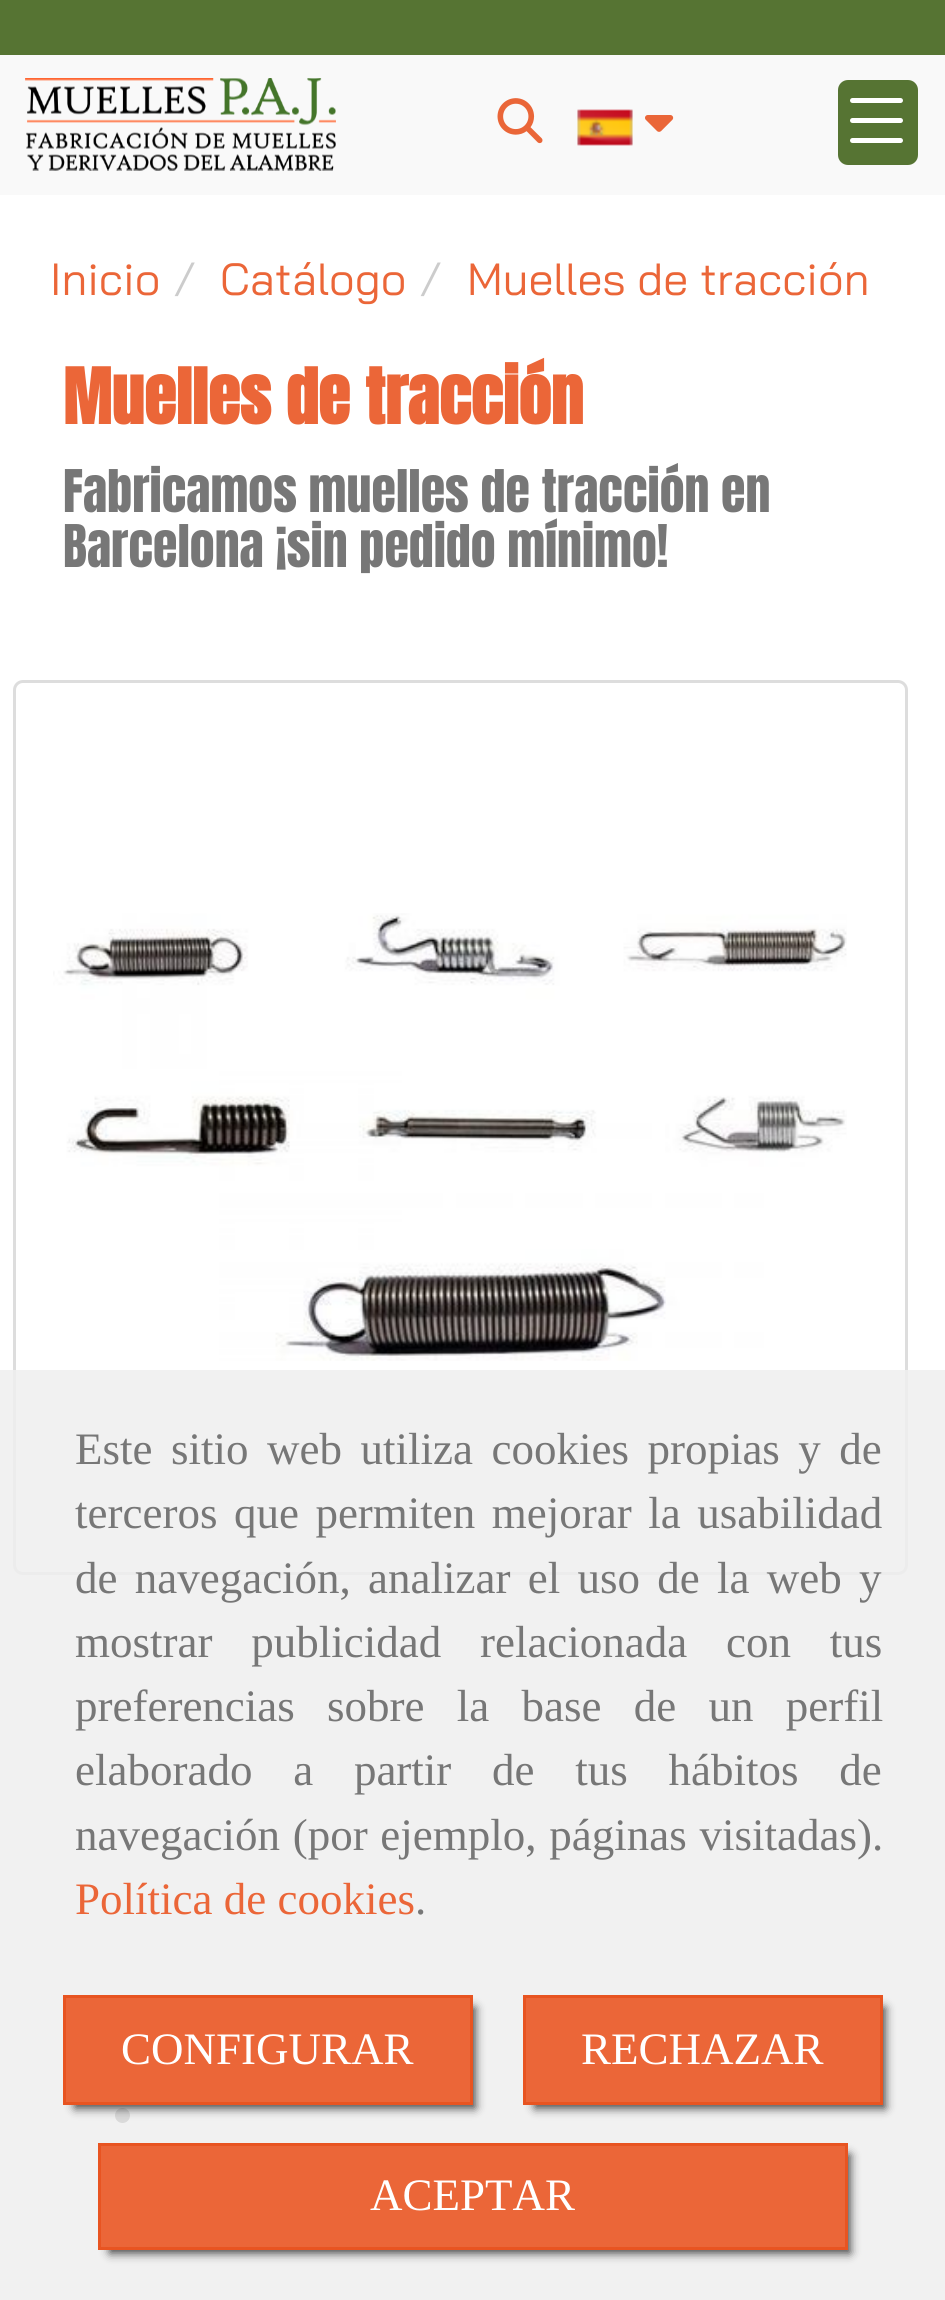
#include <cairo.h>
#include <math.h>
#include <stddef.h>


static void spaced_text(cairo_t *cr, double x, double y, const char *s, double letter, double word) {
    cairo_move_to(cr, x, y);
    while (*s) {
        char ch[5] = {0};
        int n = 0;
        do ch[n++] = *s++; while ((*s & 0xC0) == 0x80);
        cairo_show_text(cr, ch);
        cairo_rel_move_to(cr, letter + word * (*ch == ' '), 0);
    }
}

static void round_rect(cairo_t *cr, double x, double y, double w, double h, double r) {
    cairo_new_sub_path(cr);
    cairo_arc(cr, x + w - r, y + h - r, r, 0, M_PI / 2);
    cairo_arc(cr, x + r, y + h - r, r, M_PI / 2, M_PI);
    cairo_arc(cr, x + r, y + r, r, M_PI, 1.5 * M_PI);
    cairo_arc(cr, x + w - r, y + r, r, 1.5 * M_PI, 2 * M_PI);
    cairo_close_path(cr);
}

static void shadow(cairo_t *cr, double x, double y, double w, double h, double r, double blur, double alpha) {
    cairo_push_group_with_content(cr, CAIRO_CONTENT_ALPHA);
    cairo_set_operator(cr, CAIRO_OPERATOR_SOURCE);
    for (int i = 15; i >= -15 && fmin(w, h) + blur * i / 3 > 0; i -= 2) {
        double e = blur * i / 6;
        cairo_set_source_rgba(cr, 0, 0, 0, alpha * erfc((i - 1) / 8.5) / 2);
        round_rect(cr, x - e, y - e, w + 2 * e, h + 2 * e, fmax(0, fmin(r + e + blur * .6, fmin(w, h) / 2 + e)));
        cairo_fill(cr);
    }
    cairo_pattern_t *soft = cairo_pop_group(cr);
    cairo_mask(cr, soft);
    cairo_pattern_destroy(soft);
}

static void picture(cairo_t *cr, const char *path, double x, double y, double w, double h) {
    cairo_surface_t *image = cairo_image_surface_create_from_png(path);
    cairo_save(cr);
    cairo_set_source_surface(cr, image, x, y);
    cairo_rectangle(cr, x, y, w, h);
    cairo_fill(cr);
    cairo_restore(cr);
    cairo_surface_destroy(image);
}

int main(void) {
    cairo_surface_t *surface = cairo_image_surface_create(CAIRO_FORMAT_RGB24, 945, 2300);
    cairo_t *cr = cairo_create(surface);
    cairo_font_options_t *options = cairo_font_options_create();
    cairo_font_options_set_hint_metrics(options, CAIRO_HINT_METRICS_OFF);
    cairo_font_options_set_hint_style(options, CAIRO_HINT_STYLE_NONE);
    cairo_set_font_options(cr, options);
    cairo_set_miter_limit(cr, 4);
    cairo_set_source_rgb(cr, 1, 1, 1);
    cairo_paint(cr);
    cairo_set_source_rgb(cr, 0.337, 0.455, 0.2);
    cairo_rectangle(cr, 0, 0, 945, 55);
    cairo_fill(cr);
    cairo_set_source_rgb(cr, 0.973, 0.973, 0.973);
    cairo_rectangle(cr, 0, 55, 945, 140);
    cairo_fill(cr);
    picture(cr, "img1.png", 25, 78, 311, 93);
    picture(cr, "img2.png", 497, 98, 46, 46);
    picture(cr, "img3.png", 577, 109, 56, 37);
    picture(cr, "img4.png", 645, 115, 29, 17);
    cairo_set_source_rgb(cr, 0.337, 0.455, 0.2);
    round_rect(cr, 838, 80, 80, 85, 10);
    cairo_fill(cr);
    cairo_set_source_rgb(cr, 1, 1, 1);
    round_rect(cr, 850, 118, 53, 5, 2.5);
    cairo_fill(cr);
    round_rect(cr, 850, 98, 53, 5, 2.5);
    cairo_fill(cr);
    round_rect(cr, 850, 138, 53, 5, 2.5);
    cairo_fill(cr);
    cairo_select_font_face(cr, "Bai Jamjuree", CAIRO_FONT_SLANT_NORMAL, CAIRO_FONT_WEIGHT_NORMAL);
    cairo_set_font_size(cr, 45);
    cairo_set_source_rgb(cr, 0.918, 0.4, 0.22);
    cairo_move_to(cr, 50, 295);
    cairo_show_text(cr, "Inicio");
    cairo_set_source_rgb(cr, 0.8, 0.8, 0.8);
    cairo_move_to(cr, 173, 295);
    cairo_show_text(cr, "/");
    cairo_set_source_rgb(cr, 0.918, 0.4, 0.22);
    cairo_move_to(cr, 220, 295);
    cairo_show_text(cr, "Catálogo");
    cairo_set_source_rgb(cr, 0.8, 0.8, 0.8);
    cairo_move_to(cr, 419, 295);
    cairo_show_text(cr, "/");
    cairo_set_source_rgb(cr, 0.918, 0.4, 0.22);
    cairo_move_to(cr, 467, 295);
    cairo_show_text(cr, "Muelles de tracción");
    cairo_select_font_face(cr, "Anton", CAIRO_FONT_SLANT_NORMAL, CAIRO_FONT_WEIGHT_BOLD);
    cairo_set_font_size(cr, 65);
    cairo_move_to(cr, 63, 424);
    cairo_show_text(cr, "Muelles de tracción");
    cairo_select_font_face(cr, "Anton", CAIRO_FONT_SLANT_NORMAL, CAIRO_FONT_WEIGHT_NORMAL);
    cairo_set_font_size(cr, 50);
    cairo_set_source_rgb(cr, 0.467, 0.467, 0.467);
    cairo_move_to(cr, 63, 512);
    cairo_show_text(cr, "Fabricamos muelles de tracción en");
    cairo_move_to(cr, 63, 567);
    cairo_show_text(cr, "Barcelona ¡sin pedido mínimo!");
    round_rect(cr, 14.5, 681.5, 892, 892, 8.5);
    cairo_set_source_rgb(cr, 0.867, 0.867, 0.867);
    cairo_set_line_width(cr, 3);
    cairo_stroke(cr);
    picture(cr, "img5.png", 53, 913, 794, 448);
    cairo_set_source_rgb(cr, 0.384, 0.384, 0.384);
    cairo_arc(cr, 122.5, 2115.5, 7.5, 0, 2 * M_PI);
    cairo_fill(cr);
    cairo_set_source_rgba(cr, 0.933, 0.933, 0.933, 0.85);
    cairo_rectangle(cr, 0, 1370, 945, 930);
    cairo_fill(cr);
    cairo_select_font_face(cr, "Liberation Serif", CAIRO_FONT_SLANT_NORMAL, CAIRO_FONT_WEIGHT_NORMAL);
    cairo_set_font_size(cr, 45);
    cairo_set_source_rgb(cr, 0.467, 0.467, 0.467);
    spaced_text(cr, 75, 1464, "Este sitio web utiliza cookies propias y de", 0, 7.25);
    spaced_text(cr, 75, 1528, "terceros que permiten mejorar la usabilidad", 0, 5.25);
    spaced_text(cr, 75, 1593, "de navegación, analizar el uso de la web y", 0, 6);
    spaced_text(cr, 75, 1657, "mostrar publicidad relacionada con tus", 0, 27.5);
    spaced_text(cr, 75, 1721, "preferencias sobre la base de un perfil", 0, 21);
    spaced_text(cr, 75, 1785, "elaborado a partir de tus hábitos de", 0, 29.5);
    spaced_text(cr, 75, 1850, "navegación (por ejemplo, páginas visitadas).", 0, 1.5);
    cairo_set_source_rgb(cr, 0.918, 0.4, 0.22);
    cairo_move_to(cr, 75, 1914);
    cairo_show_text(cr, "Política de cookies");
    cairo_set_source_rgb(cr, 0.467, 0.467, 0.467);
    cairo_move_to(cr, 415, 1914);
    cairo_show_text(cr, ".");
    cairo_set_source_rgb(cr, 0, 0, 0);
    shadow(cr, 75, 2008, 400, 100, 0, 5, 0.75);
    cairo_set_source_rgb(cr, 0.918, 0.4, 0.22);
    cairo_rectangle(cr, 64.5, 1996.5, 407, 107);
    cairo_fill_preserve(cr);
    cairo_set_source_rgb(cr, 0.91, 0.329, 0.129);
    cairo_stroke(cr);
    cairo_set_source_rgb(cr, 1, 1, 1);
    cairo_move_to(cr, 121, 2064);
    cairo_show_text(cr, "CONFIGURAR");
    cairo_set_source_rgb(cr, 0, 0, 0);
    shadow(cr, 535, 2008, 350, 100, 0, 5, 0.75);
    cairo_set_source_rgb(cr, 0.918, 0.4, 0.22);
    cairo_rectangle(cr, 524.5, 1996.5, 357, 107);
    cairo_fill_preserve(cr);
    cairo_set_source_rgb(cr, 0.91, 0.329, 0.129);
    cairo_stroke(cr);
    cairo_set_source_rgb(cr, 1, 1, 1);
    cairo_move_to(cr, 581, 2064);
    cairo_show_text(cr, "RECHAZAR");
    cairo_set_source_rgb(cr, 0, 0, 0);
    shadow(cr, 110, 2155, 740, 98, 0, 5, 0.75);
    cairo_set_source_rgb(cr, 0.918, 0.4, 0.22);
    cairo_rectangle(cr, 99.5, 2144.5, 747, 104);
    cairo_fill_preserve(cr);
    cairo_set_source_rgb(cr, 0.91, 0.329, 0.129);
    cairo_stroke(cr);
    cairo_set_source_rgb(cr, 1, 1, 1);
    cairo_move_to(cr, 370, 2210);
    cairo_show_text(cr, "ACEPTAR");
    cairo_surface_write_to_png(surface, "page.png");
    cairo_font_options_destroy(options);
    cairo_destroy(cr);
    cairo_surface_destroy(surface);
    return 0;
}
